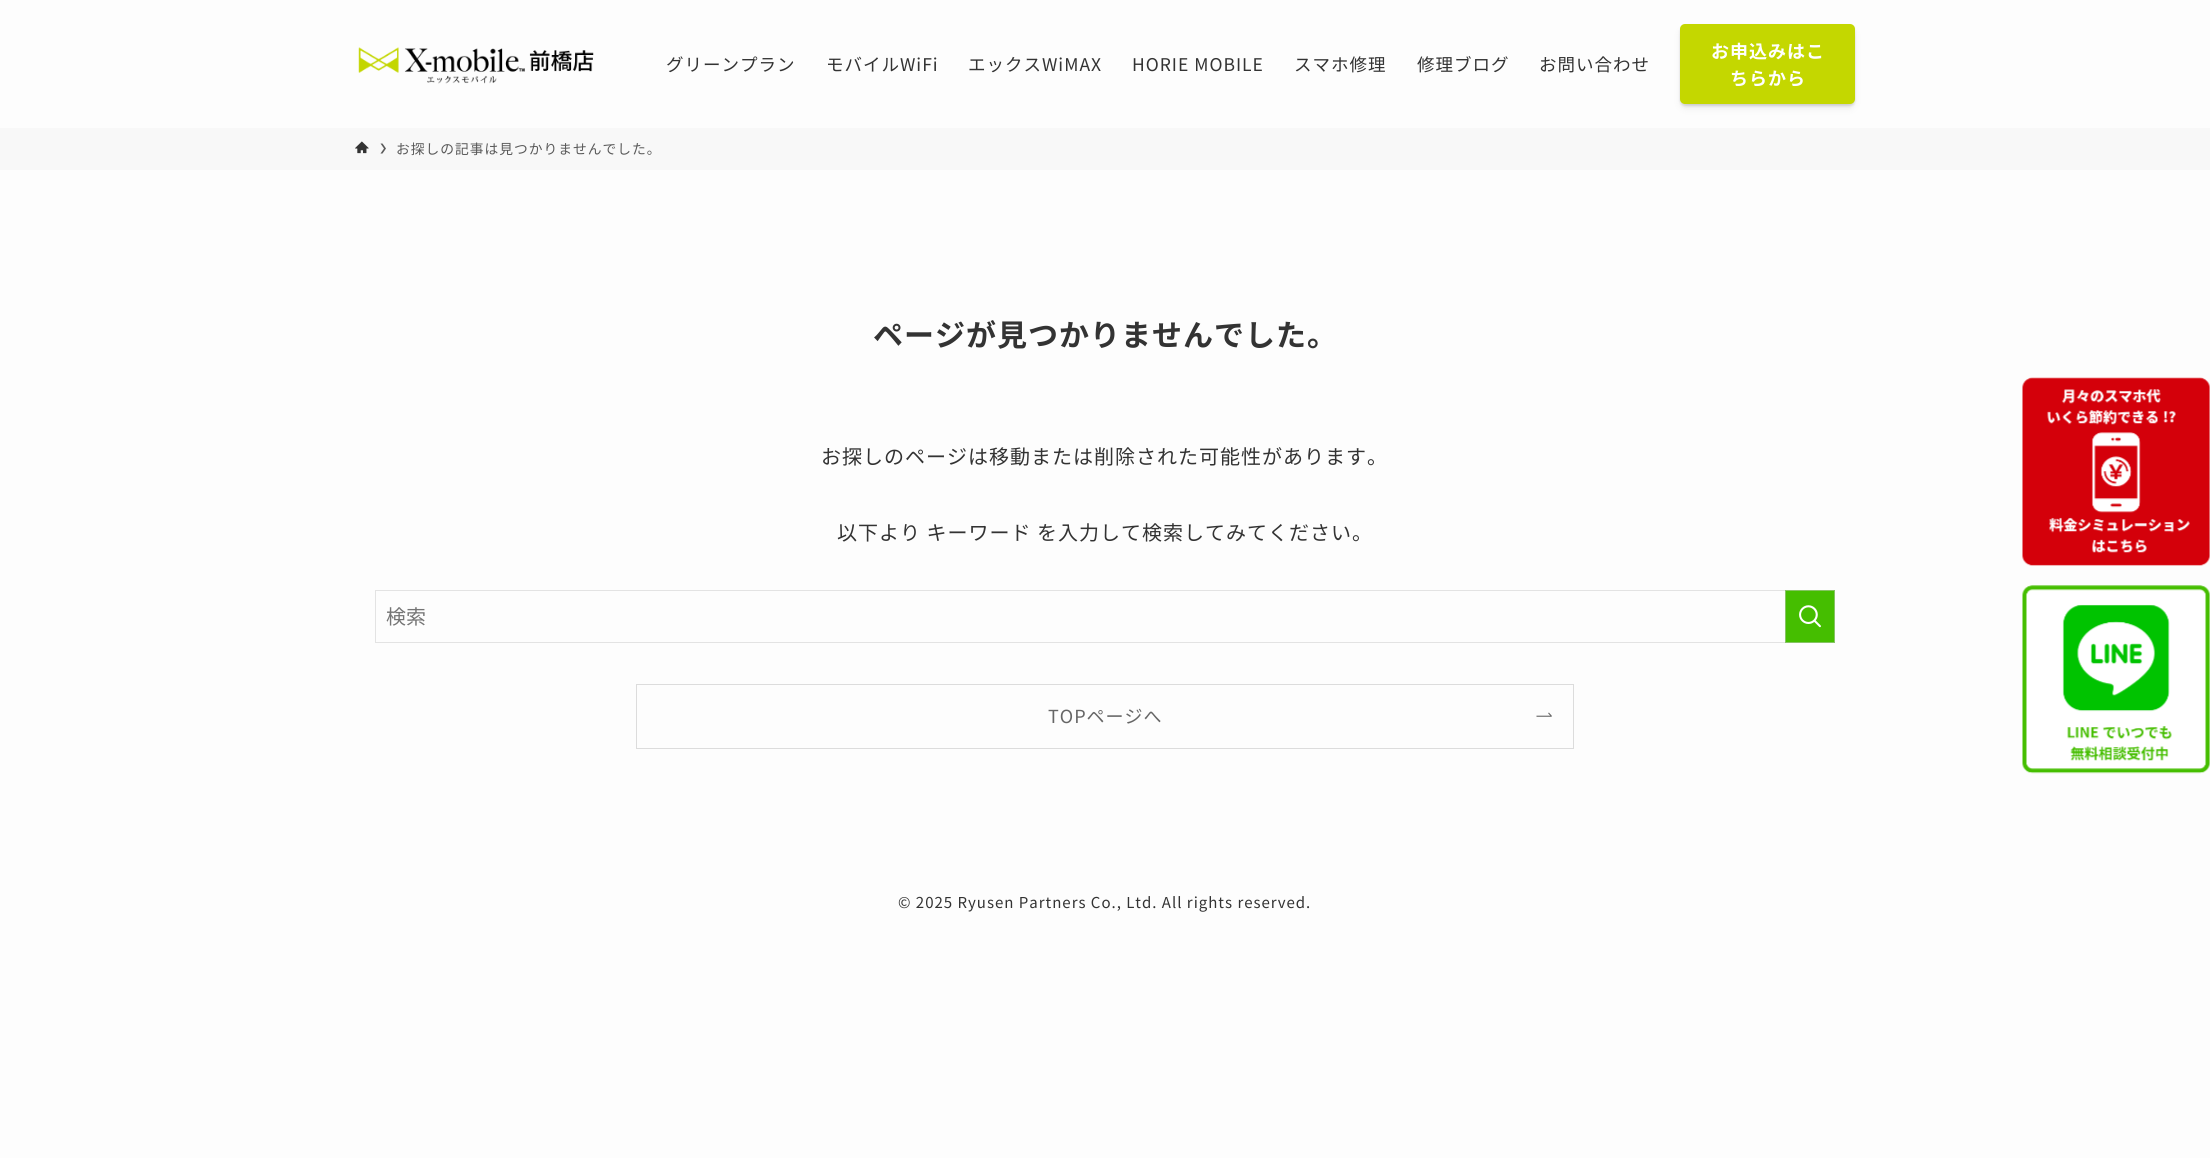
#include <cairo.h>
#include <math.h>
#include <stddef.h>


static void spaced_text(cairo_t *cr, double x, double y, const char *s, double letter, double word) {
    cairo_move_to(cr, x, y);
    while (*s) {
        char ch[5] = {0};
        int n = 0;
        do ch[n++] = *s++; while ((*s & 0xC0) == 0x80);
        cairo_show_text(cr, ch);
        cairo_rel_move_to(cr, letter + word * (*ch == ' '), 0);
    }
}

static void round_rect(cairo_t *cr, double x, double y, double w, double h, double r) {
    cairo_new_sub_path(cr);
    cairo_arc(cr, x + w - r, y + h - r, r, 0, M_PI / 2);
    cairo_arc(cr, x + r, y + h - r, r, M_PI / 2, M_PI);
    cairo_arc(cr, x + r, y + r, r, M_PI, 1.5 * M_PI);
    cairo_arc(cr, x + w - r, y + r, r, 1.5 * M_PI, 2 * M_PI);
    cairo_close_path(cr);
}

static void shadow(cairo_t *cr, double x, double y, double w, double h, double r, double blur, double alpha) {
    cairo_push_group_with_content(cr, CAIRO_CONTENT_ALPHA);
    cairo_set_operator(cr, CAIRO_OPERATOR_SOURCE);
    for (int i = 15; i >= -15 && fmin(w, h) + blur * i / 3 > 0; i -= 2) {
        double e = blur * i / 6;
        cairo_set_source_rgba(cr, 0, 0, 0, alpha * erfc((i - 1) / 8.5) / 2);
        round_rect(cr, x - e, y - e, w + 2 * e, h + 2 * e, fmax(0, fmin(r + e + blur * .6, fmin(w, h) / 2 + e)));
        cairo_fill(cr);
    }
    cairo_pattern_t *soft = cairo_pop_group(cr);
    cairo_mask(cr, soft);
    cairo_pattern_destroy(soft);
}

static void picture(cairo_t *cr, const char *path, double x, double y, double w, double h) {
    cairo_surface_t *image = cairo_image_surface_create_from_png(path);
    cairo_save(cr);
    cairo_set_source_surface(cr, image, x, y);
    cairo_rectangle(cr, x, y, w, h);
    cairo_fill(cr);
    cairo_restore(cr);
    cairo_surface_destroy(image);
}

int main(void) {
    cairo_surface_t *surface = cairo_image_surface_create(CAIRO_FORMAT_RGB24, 2210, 1158);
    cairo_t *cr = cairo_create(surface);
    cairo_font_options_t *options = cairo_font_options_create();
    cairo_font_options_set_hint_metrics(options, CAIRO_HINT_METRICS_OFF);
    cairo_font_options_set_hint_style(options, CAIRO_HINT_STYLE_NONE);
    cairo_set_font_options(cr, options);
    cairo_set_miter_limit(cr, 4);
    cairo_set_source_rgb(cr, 0.992, 0.992, 0.992);
    cairo_paint(cr);
    picture(cr, "img1.png", 358, 47, 236, 37);
    cairo_select_font_face(cr, "Noto Sans JP", CAIRO_FONT_SLANT_NORMAL, CAIRO_FONT_WEIGHT_NORMAL);
    cairo_set_font_size(cr, 17.5);
    cairo_set_source_rgb(cr, 0.2, 0.2, 0.2);
    spaced_text(cr, 666, 71, "グリーンプラン", 1, 0);
    spaced_text(cr, 826, 71, "モバイルWiFi", 1, 0);
    spaced_text(cr, 968, 71, "エックスWiMAX", 1, 0);
    spaced_text(cr, 1132, 71, "HORIE MOBILE", 1, 0);
    spaced_text(cr, 1294, 71, "スマホ修理", 1, 0);
    spaced_text(cr, 1417, 71, "修理ブログ", 1, 0);
    spaced_text(cr, 1539, 71, "お問い合わせ", 1, 0);
    cairo_set_source_rgb(cr, 0, 0, 0);
    shadow(cr, 1685, 34, 165, 70, 0, 5, 0.2);
    shadow(cr, 1680, 26, 175, 80, 5, 1, 0.1);
    cairo_set_source_rgb(cr, 0.769, 0.843, 0);
    round_rect(cr, 1680, 24, 175, 80, 5);
    cairo_fill(cr);
    cairo_select_font_face(cr, "Noto Sans JP", CAIRO_FONT_SLANT_NORMAL, CAIRO_FONT_WEIGHT_BOLD);
    cairo_set_font_size(cr, 18);
    cairo_set_source_rgb(cr, 1, 1, 1);
    spaced_text(cr, 1711, 58, "お申込みはこ", 1, 0);
    spaced_text(cr, 1730, 85, "ちらから", 1, 0);
    cairo_set_source_rgb(cr, 0.969, 0.969, 0.969);
    cairo_rectangle(cr, 0, 128, 2210, 42);
    cairo_fill(cr);
    picture(cr, "img2.png", 355, 141, 14, 13);
    cairo_set_source_rgb(cr, 0.353, 0.353, 0.353);
    cairo_new_path(cr);
    cairo_move_to(cr, 382.5, 143.5);
    cairo_line_to(cr, 380.5, 143.5);
    cairo_line_to(cr, 384, 148.5);
    cairo_line_to(cr, 380.5, 153.5);
    cairo_line_to(cr, 382.5, 153.5);
    cairo_line_to(cr, 386, 148.5);
    cairo_close_path(cr);
    cairo_fill(cr);
    cairo_select_font_face(cr, "Noto Sans JP", CAIRO_FONT_SLANT_NORMAL, CAIRO_FONT_WEIGHT_NORMAL);
    cairo_set_font_size(cr, 13.75);
    spaced_text(cr, 396, 154, "お探しの記事は見つかりませんでした。", 1, 0);
    cairo_select_font_face(cr, "Noto Sans JP", CAIRO_FONT_SLANT_NORMAL, CAIRO_FONT_WEIGHT_BOLD);
    cairo_set_font_size(cr, 30);
    cairo_set_source_rgb(cr, 0.2, 0.2, 0.2);
    spaced_text(cr, 873, 346, "ページが見つかりませんでした。", 1, 0);
    cairo_select_font_face(cr, "Noto Sans JP", CAIRO_FONT_SLANT_NORMAL, CAIRO_FONT_WEIGHT_NORMAL);
    cairo_set_font_size(cr, 20);
    spaced_text(cr, 821, 464, "お探しのページは移動または削除された可能性があります。", 1, 0);
    spaced_text(cr, 837, 540, "以下より キーワード を入力して検索してみてください。", 1, 0);
    cairo_rectangle(cr, 375.5, 590.5, 1459, 52);
    cairo_set_source_rgb(cr, 0.89, 0.89, 0.89);
    cairo_set_line_width(cr, 1);
    cairo_stroke(cr);
    cairo_set_source_rgb(cr, 0.459, 0.459, 0.459);
    cairo_move_to(cr, 386, 624);
    cairo_show_text(cr, "検索");
    cairo_set_source_rgb(cr, 0.271, 0.745, 0);
    cairo_rectangle(cr, 1785.5, 590.5, 49, 52);
    cairo_fill_preserve(cr);
    cairo_set_source_rgb(cr, 0.525, 0.765, 0.392);
    cairo_stroke(cr);
    picture(cr, "img3.png", 1799, 605, 22, 23);
    cairo_rectangle(cr, 636.5, 684.5, 937, 64);
    cairo_set_source_rgb(cr, 0.863, 0.863, 0.863);
    cairo_stroke(cr);
    cairo_set_font_size(cr, 18);
    cairo_set_source_rgb(cr, 0.4, 0.4, 0.4);
    spaced_text(cr, 1048, 723, "TOPページへ", 1, 0);
    picture(cr, "img4.png", 1536, 712, 16, 5);
    cairo_set_font_size(cr, 15);
    cairo_set_source_rgb(cr, 0.2, 0.2, 0.2);
    spaced_text(cr, 898, 908, "© 2025 Ryusen Partners Co., Ltd. All rights reserved.", 1, 0);
    picture(cr, "img5.png", 2022, 377, 188, 189);
    picture(cr, "img6.png", 2022, 585, 188, 189);
    cairo_surface_write_to_png(surface, "page.png");
    cairo_font_options_destroy(options);
    cairo_destroy(cr);
    cairo_surface_destroy(surface);
    return 0;
}
